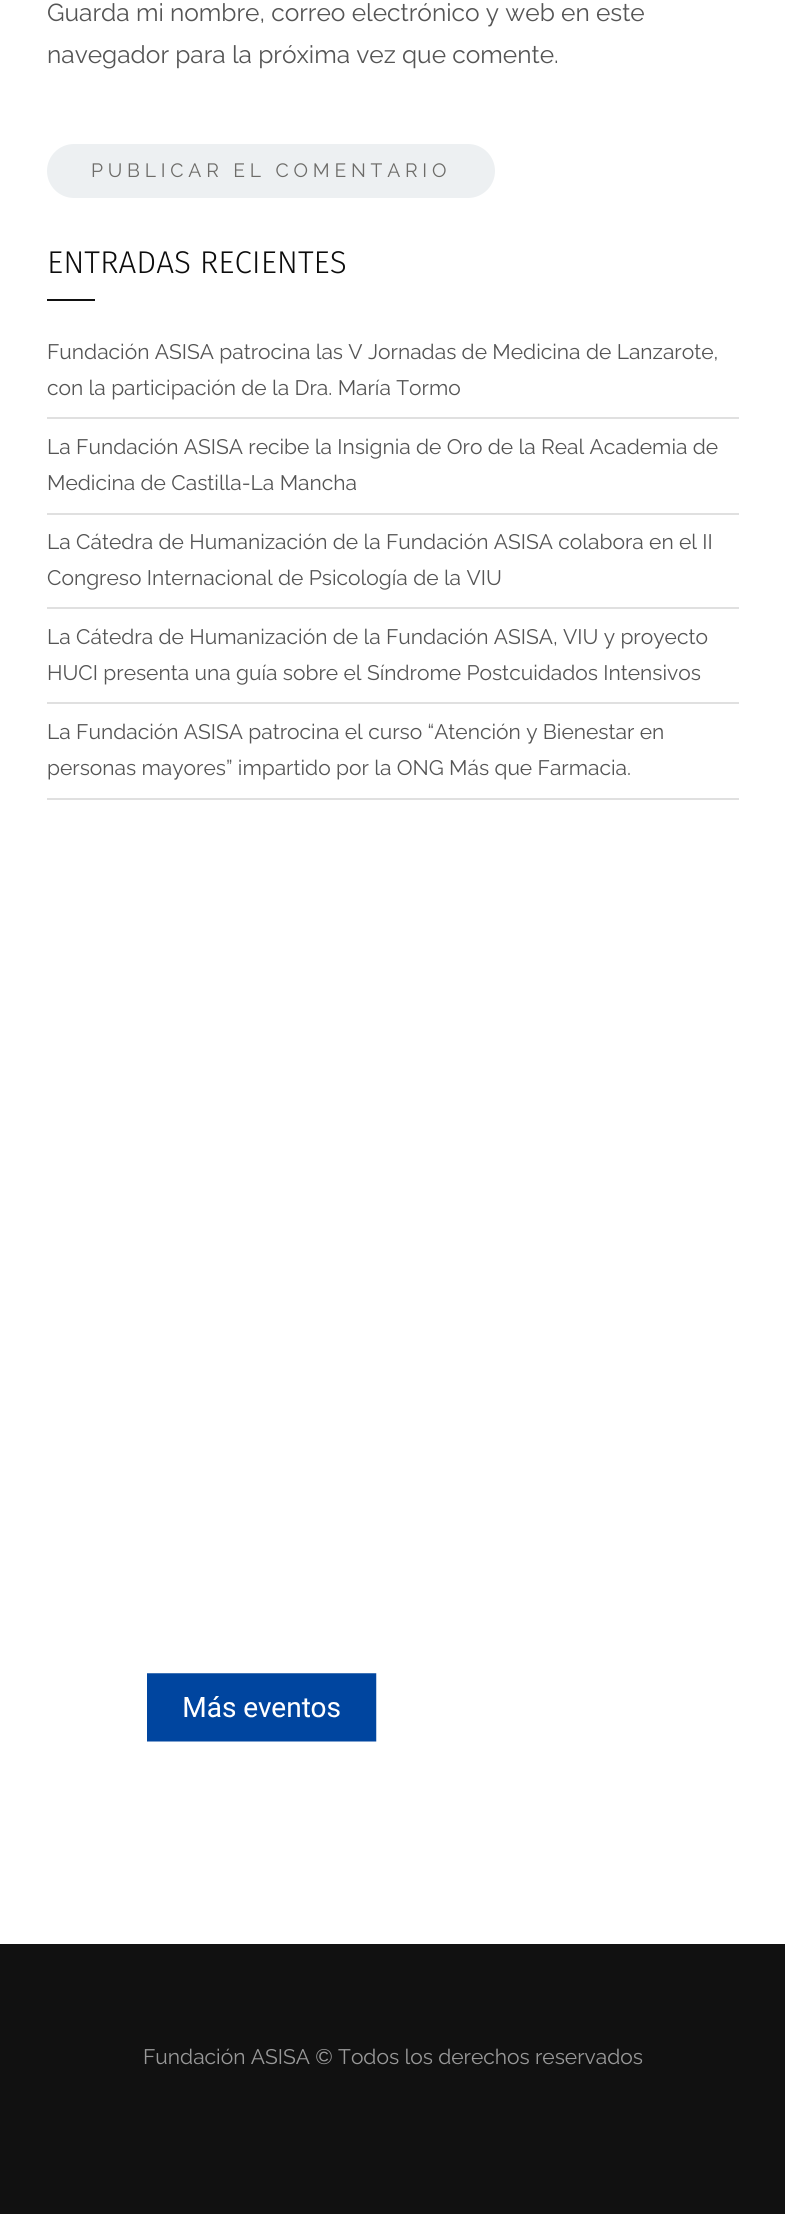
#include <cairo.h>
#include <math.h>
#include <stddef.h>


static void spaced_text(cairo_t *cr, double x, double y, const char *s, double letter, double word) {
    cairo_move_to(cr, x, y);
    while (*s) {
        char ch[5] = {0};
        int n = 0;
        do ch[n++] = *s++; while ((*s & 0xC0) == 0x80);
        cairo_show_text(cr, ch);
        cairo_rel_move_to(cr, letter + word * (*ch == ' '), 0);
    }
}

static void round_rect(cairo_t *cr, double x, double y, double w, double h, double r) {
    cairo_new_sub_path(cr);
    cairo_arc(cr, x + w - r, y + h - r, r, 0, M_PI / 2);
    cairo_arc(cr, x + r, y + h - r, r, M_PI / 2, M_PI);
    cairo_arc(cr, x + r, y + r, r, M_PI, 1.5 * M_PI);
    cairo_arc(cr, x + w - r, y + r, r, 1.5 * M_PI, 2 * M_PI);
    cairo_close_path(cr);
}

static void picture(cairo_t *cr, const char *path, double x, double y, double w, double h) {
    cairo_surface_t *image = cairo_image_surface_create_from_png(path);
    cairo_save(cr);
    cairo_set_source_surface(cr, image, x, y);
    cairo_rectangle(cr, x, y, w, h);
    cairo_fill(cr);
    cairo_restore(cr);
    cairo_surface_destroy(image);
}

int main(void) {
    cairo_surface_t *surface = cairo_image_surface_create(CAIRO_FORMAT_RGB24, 785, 2214);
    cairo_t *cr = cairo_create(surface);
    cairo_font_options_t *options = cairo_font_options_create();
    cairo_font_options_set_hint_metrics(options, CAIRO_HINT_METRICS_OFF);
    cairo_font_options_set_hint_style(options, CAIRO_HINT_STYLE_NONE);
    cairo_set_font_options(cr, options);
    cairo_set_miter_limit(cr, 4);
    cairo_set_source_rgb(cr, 1, 1, 1);
    cairo_paint(cr);
    cairo_select_font_face(cr, "Raleway Thin", CAIRO_FONT_SLANT_NORMAL, CAIRO_FONT_WEIGHT_NORMAL);
    cairo_set_font_size(cr, 24.5);
    cairo_set_source_rgb(cr, 0.333, 0.333, 0.333);
    cairo_move_to(cr, 47, 21);
    cairo_show_text(cr, "Guarda mi nombre, correo electrónico y web en este");
    cairo_move_to(cr, 47, 63);
    cairo_show_text(cr, "navegador para la próxima vez que comente.");
    cairo_set_source_rgb(cr, 0.929, 0.941, 0.949);
    round_rect(cr, 47, 144, 448, 54, 27);
    cairo_fill(cr);
    cairo_set_font_size(cr, 19.25);
    cairo_set_source_rgb(cr, 0.427, 0.424, 0.412);
    spaced_text(cr, 91, 177, "PUBLICAR EL COMENTARIO", 4.8, 0);
    cairo_select_font_face(cr, "Fira Sans Light", CAIRO_FONT_SLANT_NORMAL, CAIRO_FONT_WEIGHT_NORMAL);
    cairo_set_font_size(cr, 31.5);
    cairo_set_source_rgb(cr, 0.047, 0.047, 0.047);
    cairo_move_to(cr, 47, 273);
    cairo_show_text(cr, "ENTRADAS RECIENTES");
    cairo_set_source_rgb(cr, 0.067, 0.067, 0.067);
    cairo_rectangle(cr, 47, 299, 48, 2);
    cairo_fill(cr);
    cairo_set_source_rgb(cr, 0.878, 0.878, 0.878);
    cairo_rectangle(cr, 47, 417, 692, 2);
    cairo_fill(cr);
    cairo_select_font_face(cr, "Raleway Thin", CAIRO_FONT_SLANT_NORMAL, CAIRO_FONT_WEIGHT_NORMAL);
    cairo_set_font_size(cr, 21);
    cairo_set_source_rgb(cr, 0.333, 0.333, 0.333);
    cairo_move_to(cr, 47, 359);
    cairo_show_text(cr, "Fundación ASISA patrocina las V Jornadas de Medicina de Lanzarote,");
    cairo_move_to(cr, 47, 395);
    cairo_show_text(cr, "con la participación de la Dra. María Tormo");
    cairo_set_source_rgb(cr, 0.878, 0.878, 0.878);
    cairo_rectangle(cr, 47, 513, 692, 2);
    cairo_fill(cr);
    cairo_set_source_rgb(cr, 0.333, 0.333, 0.333);
    cairo_move_to(cr, 47, 454);
    cairo_show_text(cr, "La Fundación ASISA recibe la Insignia de Oro de la Real Academia de");
    cairo_move_to(cr, 47, 490);
    cairo_show_text(cr, "Medicina de Castilla-La Mancha");
    cairo_set_source_rgb(cr, 0.878, 0.878, 0.878);
    cairo_rectangle(cr, 47, 607, 692, 2);
    cairo_fill(cr);
    cairo_set_source_rgb(cr, 0.333, 0.333, 0.333);
    cairo_move_to(cr, 47, 549);
    cairo_show_text(cr, "La Cátedra de Humanización de la Fundación ASISA colabora en el II");
    cairo_move_to(cr, 47, 585);
    cairo_show_text(cr, "Congreso Internacional de Psicología de la VIU");
    cairo_set_source_rgb(cr, 0.878, 0.878, 0.878);
    cairo_rectangle(cr, 47, 702, 692, 2);
    cairo_fill(cr);
    cairo_set_source_rgb(cr, 0.333, 0.333, 0.333);
    cairo_move_to(cr, 47, 644);
    cairo_show_text(cr, "La Cátedra de Humanización de la Fundación ASISA, VIU y proyecto");
    cairo_move_to(cr, 47, 680);
    cairo_show_text(cr, "HUCI presenta una guía sobre el Síndrome Postcuidados Intensivos");
    cairo_set_source_rgb(cr, 0.878, 0.878, 0.878);
    cairo_rectangle(cr, 47, 798, 692, 2);
    cairo_fill(cr);
    cairo_set_source_rgb(cr, 0.333, 0.333, 0.333);
    cairo_move_to(cr, 47, 739);
    cairo_show_text(cr, "La Fundación ASISA patrocina el curso “Atención y Bienestar en");
    cairo_move_to(cr, 47, 775);
    cairo_show_text(cr, "personas mayores” impartido por la ONG Más que Farmacia.");
    picture(cr, "img1.png", 147, 1673, 230, 69);
    cairo_set_source_rgb(cr, 0.067, 0.067, 0.067);
    cairo_rectangle(cr, 0, 1944, 785, 270);
    cairo_fill(cr);
    cairo_set_source_rgb(cr, 0.6, 0.6, 0.6);
    cairo_move_to(cr, 143, 2064);
    cairo_show_text(cr, "Fundación ASISA © Todos los derechos reservados");
    cairo_surface_write_to_png(surface, "page.png");
    cairo_font_options_destroy(options);
    cairo_destroy(cr);
    cairo_surface_destroy(surface);
    return 0;
}
